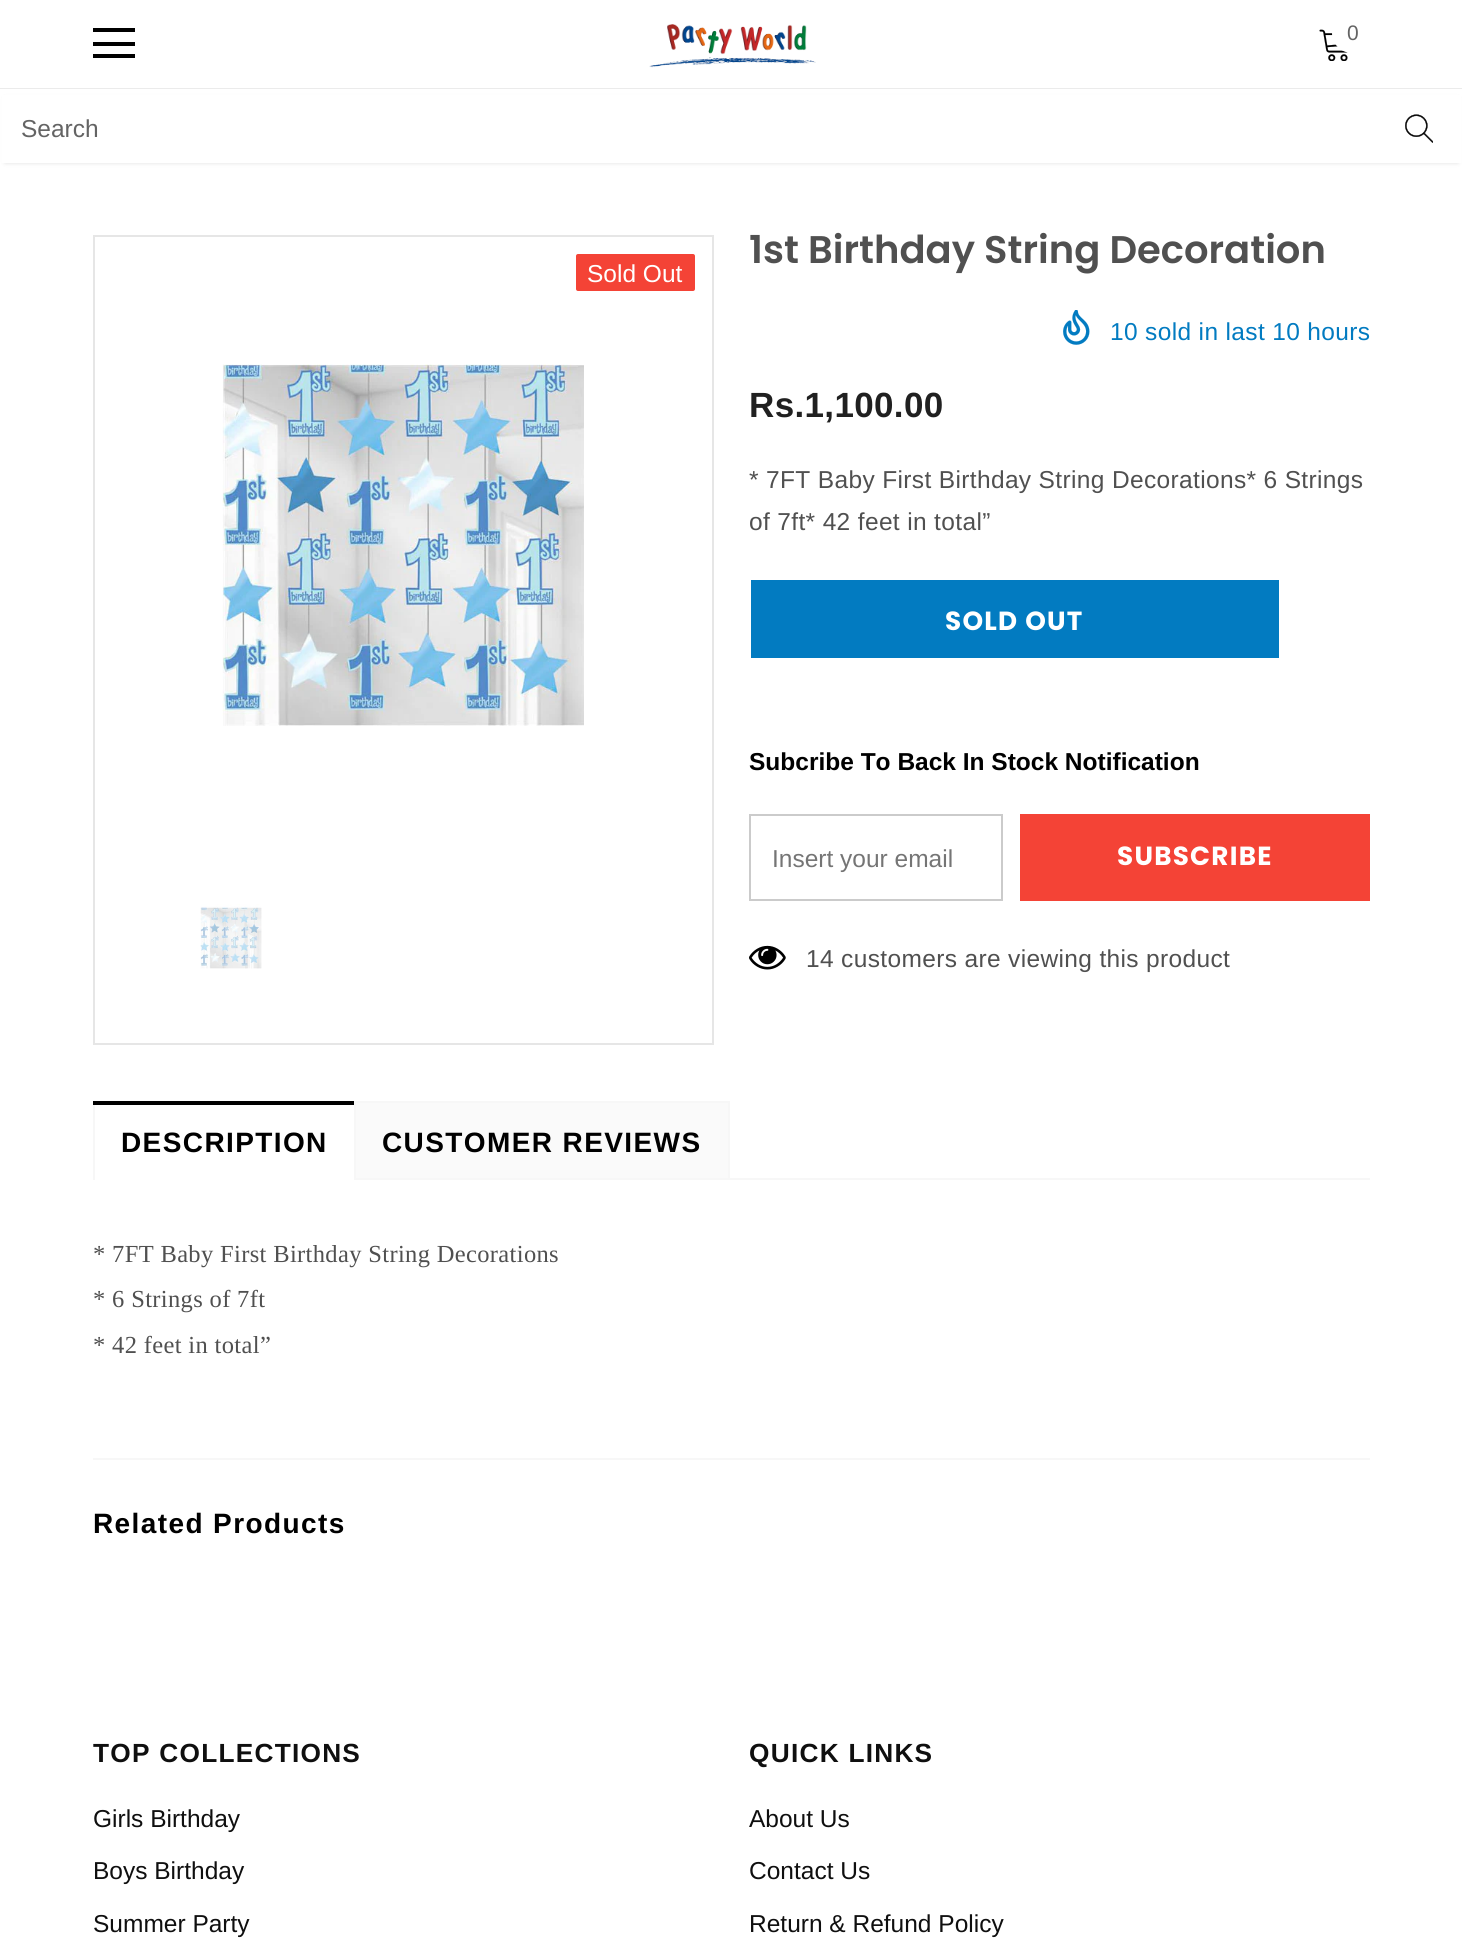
#include <cairo.h>
#include <math.h>
#include <stddef.h>


static void spaced_text(cairo_t *cr, double x, double y, const char *s, double letter, double word) {
    cairo_move_to(cr, x, y);
    while (*s) {
        char ch[5] = {0};
        int n = 0;
        do ch[n++] = *s++; while ((*s & 0xC0) == 0x80);
        cairo_show_text(cr, ch);
        cairo_rel_move_to(cr, letter + word * (*ch == ' '), 0);
    }
}

static void round_rect(cairo_t *cr, double x, double y, double w, double h, double r) {
    cairo_new_sub_path(cr);
    cairo_arc(cr, x + w - r, y + h - r, r, 0, M_PI / 2);
    cairo_arc(cr, x + r, y + h - r, r, M_PI / 2, M_PI);
    cairo_arc(cr, x + r, y + r, r, M_PI, 1.5 * M_PI);
    cairo_arc(cr, x + w - r, y + r, r, 1.5 * M_PI, 2 * M_PI);
    cairo_close_path(cr);
}

static void shadow(cairo_t *cr, double x, double y, double w, double h, double r, double blur, double alpha) {
    cairo_push_group_with_content(cr, CAIRO_CONTENT_ALPHA);
    cairo_set_operator(cr, CAIRO_OPERATOR_SOURCE);
    for (int i = 15; i >= -15 && fmin(w, h) + blur * i / 3 > 0; i -= 2) {
        double e = blur * i / 6;
        cairo_set_source_rgba(cr, 0, 0, 0, alpha * erfc((i - 1) / 8.5) / 2);
        round_rect(cr, x - e, y - e, w + 2 * e, h + 2 * e, fmax(0, fmin(r + e + blur * .6, fmin(w, h) / 2 + e)));
        cairo_fill(cr);
    }
    cairo_pattern_t *soft = cairo_pop_group(cr);
    cairo_mask(cr, soft);
    cairo_pattern_destroy(soft);
}

static void picture(cairo_t *cr, const char *path, double x, double y, double w, double h) {
    cairo_surface_t *image = cairo_image_surface_create_from_png(path);
    cairo_save(cr);
    cairo_set_source_surface(cr, image, x, y);
    cairo_rectangle(cr, x, y, w, h);
    cairo_fill(cr);
    cairo_restore(cr);
    cairo_surface_destroy(image);
}

int main(void) {
    cairo_surface_t *surface = cairo_image_surface_create(CAIRO_FORMAT_RGB24, 1462, 1955);
    cairo_t *cr = cairo_create(surface);
    cairo_font_options_t *options = cairo_font_options_create();
    cairo_font_options_set_hint_metrics(options, CAIRO_HINT_METRICS_OFF);
    cairo_font_options_set_hint_style(options, CAIRO_HINT_STYLE_NONE);
    cairo_set_font_options(cr, options);
    cairo_set_miter_limit(cr, 4);
    cairo_set_source_rgb(cr, 1, 1, 1);
    cairo_paint(cr);
    picture(cr, "img1.png", 649, 24, 167, 44);
    picture(cr, "img2.png", 1319, 29, 29, 32);
    cairo_set_source_rgb(cr, 1, 1, 1);
    round_rect(cr, 1332, 12, 40, 41, 20);
    cairo_fill(cr);
    cairo_select_font_face(cr, "Liberation Sans", CAIRO_FONT_SLANT_NORMAL, CAIRO_FONT_WEIGHT_NORMAL);
    cairo_set_font_size(cr, 21);
    cairo_set_source_rgb(cr, 0.392, 0.392, 0.392);
    cairo_move_to(cr, 1347, 40);
    cairo_show_text(cr, "0");
    cairo_set_source_rgb(cr, 0, 0, 0);
    shadow(cr, 5, 98, 1453, 65, 0, 2.5, 0.12);
    cairo_set_source_rgb(cr, 0.918, 0.918, 0.918);
    cairo_rectangle(cr, 0, 88, 1462, 1);
    cairo_fill(cr);
    cairo_set_source_rgb(cr, 1, 1, 1);
    cairo_rectangle(cr, 2, 95, 1459, 68);
    cairo_fill(cr);
    cairo_set_font_size(cr, 24.5);
    cairo_set_source_rgb(cr, 0.392, 0.392, 0.392);
    cairo_move_to(cr, 21, 137);
    cairo_show_text(cr, "Search");
    picture(cr, "img3.png", 1405, 114, 28, 29);
    cairo_set_source_rgb(cr, 0, 0, 0);
    cairo_rectangle(cr, 93, 28, 42, 4);
    cairo_fill(cr);
    cairo_rectangle(cr, 93, 42, 42, 4);
    cairo_fill(cr);
    cairo_rectangle(cr, 93, 54, 42, 4);
    cairo_fill(cr);
    cairo_rectangle(cr, 94, 236, 619, 808);
    cairo_set_source_rgb(cr, 0.902, 0.902, 0.902);
    cairo_stroke(cr);
    cairo_set_source_rgb(cr, 0.957, 0.263, 0.212);
    round_rect(cr, 576, 254, 119, 37, 2);
    cairo_fill(cr);
    cairo_set_source_rgb(cr, 1, 1, 1);
    cairo_move_to(cr, 587, 282);
    cairo_show_text(cr, "Sold Out");
    picture(cr, "img4.png", 222, 364, 362, 362);
    picture(cr, "img5.png", 200, 904, 62, 65);
    cairo_select_font_face(cr, "Poppins SemiBold", CAIRO_FONT_SLANT_NORMAL, CAIRO_FONT_WEIGHT_NORMAL);
    cairo_set_font_size(cr, 38.5);
    cairo_set_source_rgb(cr, 0.314, 0.314, 0.314);
    cairo_move_to(cr, 749, 263);
    cairo_show_text(cr, "1st Birthday String Decoration");
    picture(cr, "img6.png", 1063, 310, 27, 35);
    cairo_select_font_face(cr, "Liberation Sans", CAIRO_FONT_SLANT_NORMAL, CAIRO_FONT_WEIGHT_NORMAL);
    cairo_set_font_size(cr, 24.5);
    cairo_set_source_rgb(cr, 0.008, 0.482, 0.757);
    spaced_text(cr, 1110, 340, "10 sold in last 10 hours", 0.35, 0);
    cairo_select_font_face(cr, "Liberation Sans", CAIRO_FONT_SLANT_NORMAL, CAIRO_FONT_WEIGHT_BOLD);
    cairo_set_font_size(cr, 35);
    cairo_set_source_rgb(cr, 0.125, 0.125, 0.125);
    spaced_text(cr, 749, 417, "Rs.1,100.00", 0.35, 0);
    cairo_select_font_face(cr, "Liberation Sans", CAIRO_FONT_SLANT_NORMAL, CAIRO_FONT_WEIGHT_NORMAL);
    cairo_set_font_size(cr, 24.5);
    cairo_set_source_rgb(cr, 0.314, 0.314, 0.314);
    spaced_text(cr, 749, 488, "* 7FT Baby First Birthday String Decorations* 6 Strings", 0.35, 0);
    spaced_text(cr, 749, 530, "of 7ft* 42 feet in total”", 0.35, 0);
    cairo_set_source_rgb(cr, 0.008, 0.482, 0.757);
    cairo_rectangle(cr, 751, 580, 528, 78);
    cairo_fill(cr);
    cairo_select_font_face(cr, "Poppins", CAIRO_FONT_SLANT_NORMAL, CAIRO_FONT_WEIGHT_BOLD);
    cairo_set_font_size(cr, 26.25);
    cairo_set_source_rgb(cr, 1, 1, 1);
    spaced_text(cr, 945, 630, "SOLD OUT", 1.25, 0);
    cairo_select_font_face(cr, "Liberation Sans", CAIRO_FONT_SLANT_NORMAL, CAIRO_FONT_WEIGHT_BOLD);
    cairo_set_font_size(cr, 24.5);
    cairo_set_source_rgb(cr, 0, 0, 0);
    cairo_move_to(cr, 749, 770);
    cairo_show_text(cr, "Subcribe To Back In Stock Notification");
    cairo_rectangle(cr, 750, 815, 252, 85);
    cairo_set_source_rgb(cr, 0.796, 0.796, 0.796);
    cairo_stroke(cr);
    cairo_select_font_face(cr, "Liberation Sans", CAIRO_FONT_SLANT_NORMAL, CAIRO_FONT_WEIGHT_NORMAL);
    cairo_set_source_rgb(cr, 0.459, 0.459, 0.459);
    cairo_move_to(cr, 772, 867);
    cairo_show_text(cr, "Insert your email");
    cairo_set_source_rgb(cr, 0.957, 0.263, 0.212);
    cairo_rectangle(cr, 1020, 814, 350, 87);
    cairo_fill(cr);
    cairo_select_font_face(cr, "Poppins", CAIRO_FONT_SLANT_NORMAL, CAIRO_FONT_WEIGHT_BOLD);
    cairo_set_font_size(cr, 26.25);
    cairo_set_source_rgb(cr, 1, 1, 1);
    spaced_text(cr, 1117, 865, "SUBSCRIBE", 1.25, 0);
    picture(cr, "img7.png", 749, 945, 37, 25);
    cairo_select_font_face(cr, "Liberation Sans", CAIRO_FONT_SLANT_NORMAL, CAIRO_FONT_WEIGHT_NORMAL);
    cairo_set_font_size(cr, 24.5);
    cairo_set_source_rgb(cr, 0.314, 0.314, 0.314);
    spaced_text(cr, 806, 967, "14 customers are viewing this product", 0.35, 0);
    cairo_set_source_rgb(cr, 0.965, 0.965, 0.965);
    cairo_rectangle(cr, 93, 1178, 1277, 2);
    cairo_fill(cr);
    cairo_rectangle(cr, 93, 1101, 2, 77);
    cairo_fill(cr);
    cairo_set_source_rgb(cr, 0, 0, 0);
    cairo_rectangle(cr, 93, 1101, 262, 4);
    cairo_fill(cr);
    cairo_select_font_face(cr, "Liberation Sans", CAIRO_FONT_SLANT_NORMAL, CAIRO_FONT_WEIGHT_BOLD);
    cairo_set_font_size(cr, 28);
    spaced_text(cr, 121, 1152, "DESCRIPTION", 1.4, 0);
    cairo_set_source_rgb(cr, 1, 1, 1);
    cairo_rectangle(cr, 95, 1178, 259, 2);
    cairo_fill(cr);
    cairo_set_source_rgb(cr, 0.98, 0.98, 0.98);
    cairo_rectangle(cr, 356, 1103, 372, 75);
    cairo_fill(cr);
    cairo_set_source_rgb(cr, 0.965, 0.965, 0.965);
    cairo_rectangle(cr, 354, 1101, 376, 2);
    cairo_fill(cr);
    cairo_rectangle(cr, 728, 1101, 2, 77);
    cairo_fill(cr);
    cairo_rectangle(cr, 354, 1101, 2, 77);
    cairo_fill(cr);
    cairo_set_source_rgb(cr, 0, 0, 0);
    spaced_text(cr, 382, 1152, "CUSTOMER REVIEWS", 1.4, 0);
    cairo_select_font_face(cr, "Liberation Serif", CAIRO_FONT_SLANT_NORMAL, CAIRO_FONT_WEIGHT_NORMAL);
    cairo_set_font_size(cr, 24.5);
    cairo_set_source_rgb(cr, 0.314, 0.314, 0.314);
    spaced_text(cr, 93, 1262, "* 7FT Baby First Birthday String Decorations", 0.35, 0);
    spaced_text(cr, 93, 1307, "* 6 Strings of 7ft", 0.35, 0);
    spaced_text(cr, 93, 1353, "* 42 feet in total”", 0.35, 0);
    cairo_set_source_rgb(cr, 0.965, 0.965, 0.965);
    cairo_rectangle(cr, 93, 1458, 1277, 2);
    cairo_fill(cr);
    cairo_select_font_face(cr, "Liberation Sans", CAIRO_FONT_SLANT_NORMAL, CAIRO_FONT_WEIGHT_BOLD);
    cairo_set_font_size(cr, 28);
    cairo_set_source_rgb(cr, 0, 0, 0);
    spaced_text(cr, 93, 1533, "Related Products", 1.4, 0);
    cairo_set_font_size(cr, 26.25);
    cairo_set_source_rgb(cr, 0.059, 0.059, 0.059);
    spaced_text(cr, 93, 1762, "TOP COLLECTIONS", 1.25, 0);
    cairo_select_font_face(cr, "Liberation Sans", CAIRO_FONT_SLANT_NORMAL, CAIRO_FONT_WEIGHT_NORMAL);
    cairo_set_font_size(cr, 24.5);
    cairo_move_to(cr, 93, 1827);
    cairo_show_text(cr, "Girls Birthday");
    cairo_move_to(cr, 93, 1879);
    cairo_show_text(cr, "Boys Birthday");
    cairo_move_to(cr, 93, 1932);
    cairo_show_text(cr, "Summer Party");
    cairo_select_font_face(cr, "Liberation Sans", CAIRO_FONT_SLANT_NORMAL, CAIRO_FONT_WEIGHT_BOLD);
    cairo_set_font_size(cr, 26.25);
    spaced_text(cr, 749, 1762, "QUICK LINKS", 1.25, 0);
    cairo_select_font_face(cr, "Liberation Sans", CAIRO_FONT_SLANT_NORMAL, CAIRO_FONT_WEIGHT_NORMAL);
    cairo_set_font_size(cr, 24.5);
    cairo_move_to(cr, 749, 1827);
    cairo_show_text(cr, "About Us");
    cairo_move_to(cr, 749, 1879);
    cairo_show_text(cr, "Contact Us");
    cairo_move_to(cr, 749, 1932);
    cairo_show_text(cr, "Return & Refund Policy");
    cairo_surface_write_to_png(surface, "page.png");
    cairo_font_options_destroy(options);
    cairo_destroy(cr);
    cairo_surface_destroy(surface);
    return 0;
}
